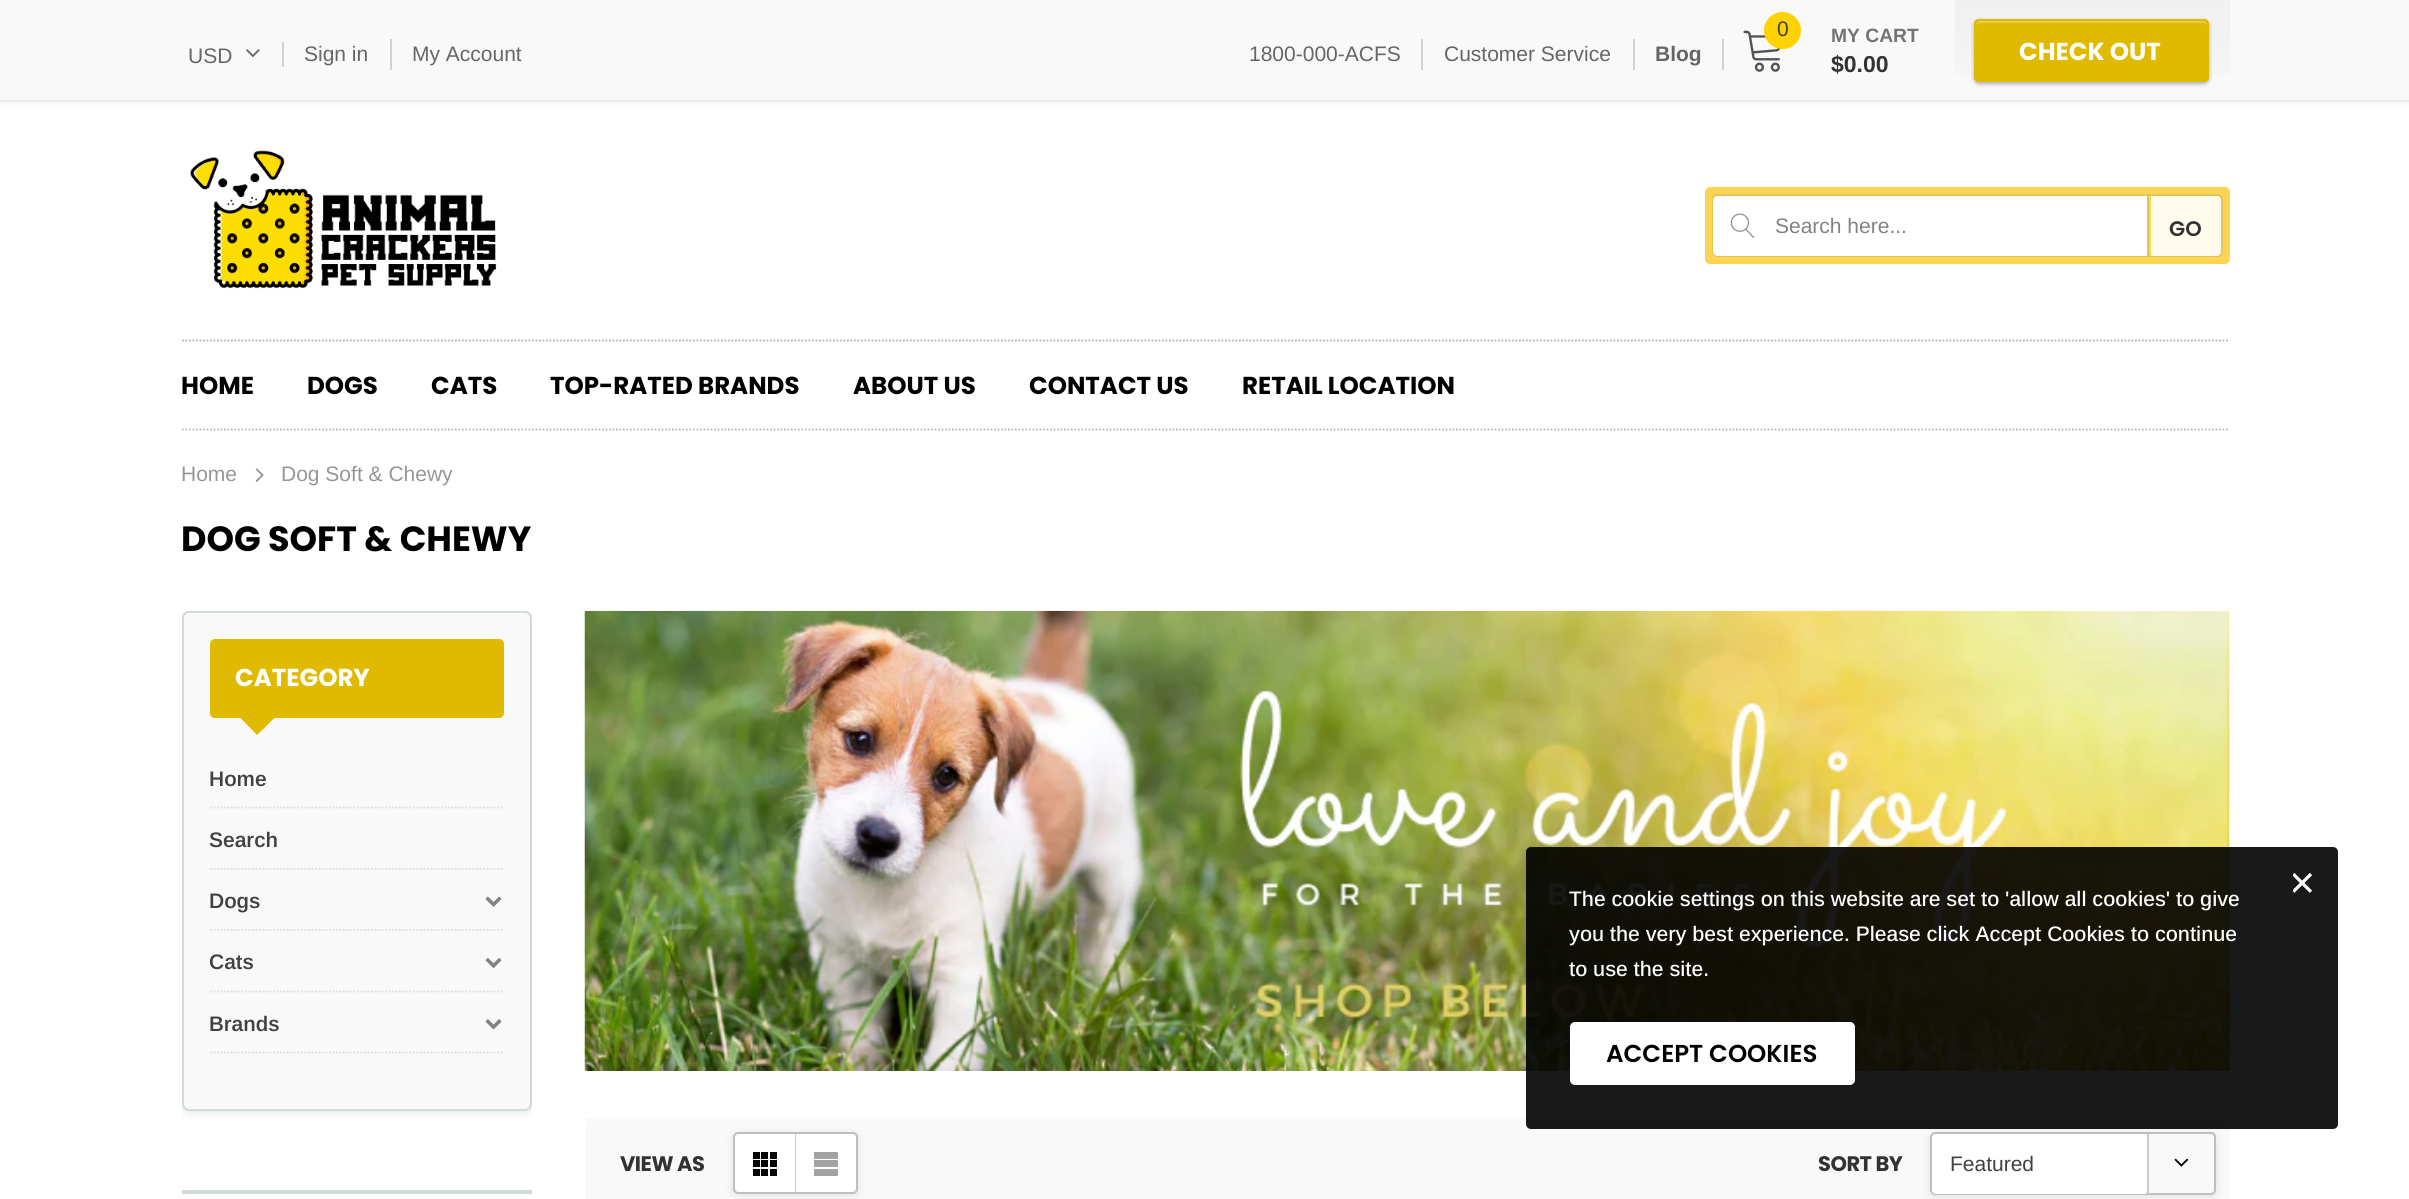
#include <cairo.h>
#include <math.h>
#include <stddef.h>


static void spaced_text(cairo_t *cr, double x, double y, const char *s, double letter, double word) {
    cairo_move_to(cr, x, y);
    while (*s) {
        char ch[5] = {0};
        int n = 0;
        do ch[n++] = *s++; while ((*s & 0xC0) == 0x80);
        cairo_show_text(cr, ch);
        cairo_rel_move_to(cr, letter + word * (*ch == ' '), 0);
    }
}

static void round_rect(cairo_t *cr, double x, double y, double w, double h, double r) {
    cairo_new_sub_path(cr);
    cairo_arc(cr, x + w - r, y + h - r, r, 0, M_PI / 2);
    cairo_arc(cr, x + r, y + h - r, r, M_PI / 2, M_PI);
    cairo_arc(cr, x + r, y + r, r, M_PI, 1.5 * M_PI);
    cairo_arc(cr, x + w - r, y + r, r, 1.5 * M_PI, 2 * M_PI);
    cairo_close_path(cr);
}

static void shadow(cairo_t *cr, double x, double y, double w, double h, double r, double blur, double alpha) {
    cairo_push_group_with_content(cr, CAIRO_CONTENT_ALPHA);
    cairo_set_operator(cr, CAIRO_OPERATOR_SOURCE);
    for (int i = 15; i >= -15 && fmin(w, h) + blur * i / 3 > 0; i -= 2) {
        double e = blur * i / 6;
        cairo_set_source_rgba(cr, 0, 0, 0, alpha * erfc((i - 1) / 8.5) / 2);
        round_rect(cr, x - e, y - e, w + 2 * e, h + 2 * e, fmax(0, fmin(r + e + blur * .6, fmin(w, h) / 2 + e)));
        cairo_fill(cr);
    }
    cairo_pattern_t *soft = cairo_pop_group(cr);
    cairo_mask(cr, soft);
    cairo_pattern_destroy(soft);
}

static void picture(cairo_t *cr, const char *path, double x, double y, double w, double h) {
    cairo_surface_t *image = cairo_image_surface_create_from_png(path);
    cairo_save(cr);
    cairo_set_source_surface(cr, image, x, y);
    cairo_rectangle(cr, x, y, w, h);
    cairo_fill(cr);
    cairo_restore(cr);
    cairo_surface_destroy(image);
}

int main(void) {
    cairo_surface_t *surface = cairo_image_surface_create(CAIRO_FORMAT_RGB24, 2409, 1199);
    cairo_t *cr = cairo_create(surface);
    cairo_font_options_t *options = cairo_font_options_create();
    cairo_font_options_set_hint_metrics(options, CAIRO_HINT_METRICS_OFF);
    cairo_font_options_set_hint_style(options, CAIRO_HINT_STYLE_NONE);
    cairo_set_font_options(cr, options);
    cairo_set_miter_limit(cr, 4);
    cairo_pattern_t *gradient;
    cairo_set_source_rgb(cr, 1, 1, 1);
    cairo_paint(cr);
    cairo_set_source_rgb(cr, 0, 0, 0);
    shadow(cr, 0, 2, 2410, 101, 0, 2, 0.05);
    cairo_set_source_rgb(cr, 0.973, 0.973, 0.973);
    cairo_rectangle(cr, 0, 0, 2409, 100);
    cairo_fill(cr);
    cairo_set_source_rgb(cr, 0.922, 0.922, 0.922);
    cairo_rectangle(cr, 0, 100, 2409, 2);
    cairo_fill(cr);
    cairo_select_font_face(cr, "Arimo", CAIRO_FONT_SLANT_NORMAL, CAIRO_FONT_WEIGHT_NORMAL);
    cairo_set_font_size(cr, 21);
    cairo_set_source_rgb(cr, 0.4, 0.4, 0.4);
    cairo_move_to(cr, 188, 63);
    cairo_show_text(cr, "USD");
    picture(cr, "img1.png", 246, 49, 14, 9);
    cairo_move_to(cr, 304, 61);
    cairo_show_text(cr, "Sign in");
    cairo_set_source_rgb(cr, 0.824, 0.824, 0.827);
    cairo_rectangle(cr, 282, 42, 2, 25);
    cairo_fill(cr);
    cairo_rectangle(cr, 390, 39, 2, 31);
    cairo_fill(cr);
    cairo_set_source_rgb(cr, 0.4, 0.4, 0.4);
    cairo_move_to(cr, 412, 61);
    cairo_show_text(cr, "My Account");
    cairo_set_source_rgb(cr, 0.824, 0.824, 0.827);
    cairo_rectangle(cr, 1421, 39, 2, 31);
    cairo_fill(cr);
    cairo_set_source_rgb(cr, 0.4, 0.4, 0.4);
    cairo_move_to(cr, 1249, 61);
    cairo_show_text(cr, "1800-000-ACFS");
    cairo_set_source_rgb(cr, 0.824, 0.824, 0.827);
    cairo_rectangle(cr, 1633, 39, 2, 31);
    cairo_fill(cr);
    cairo_set_source_rgb(cr, 0.4, 0.4, 0.4);
    cairo_move_to(cr, 1444, 61);
    cairo_show_text(cr, "Customer Service");
    cairo_set_source_rgb(cr, 0.824, 0.824, 0.827);
    cairo_rectangle(cr, 1722, 39, 2, 31);
    cairo_fill(cr);
    cairo_select_font_face(cr, "Arimo", CAIRO_FONT_SLANT_NORMAL, CAIRO_FONT_WEIGHT_BOLD);
    cairo_set_source_rgb(cr, 0.4, 0.4, 0.4);
    cairo_move_to(cr, 1655, 61);
    cairo_show_text(cr, "Blog");
    picture(cr, "img2.png", 1743, 30, 38, 42);
    cairo_set_source_rgb(cr, 1, 0.827, 0);
    cairo_arc(cr, 1782.5, 30.5, 18.5, 0, 2 * M_PI);
    cairo_fill(cr);
    cairo_select_font_face(cr, "Arimo", CAIRO_FONT_SLANT_NORMAL, CAIRO_FONT_WEIGHT_NORMAL);
    cairo_set_source_rgb(cr, 0.255, 0.255, 0.255);
    spaced_text(cr, 1777, 36, "0", -0.5, 0);
    cairo_select_font_face(cr, "Arimo", CAIRO_FONT_SLANT_NORMAL, CAIRO_FONT_WEIGHT_BOLD);
    cairo_set_font_size(cr, 19.25);
    cairo_set_source_rgb(cr, 0.451, 0.451, 0.451);
    cairo_move_to(cr, 1831, 42);
    cairo_show_text(cr, "MY CART");
    cairo_set_font_size(cr, 23);
    cairo_set_source_rgb(cr, 0.196, 0.196, 0.196);
    cairo_move_to(cr, 1831, 72);
    cairo_show_text(cr, "$0.00");
    gradient = cairo_pattern_create_linear(2092, 0, 2092, 100);
    cairo_pattern_add_color_stop_rgba(gradient, 0, 0.925, 0.925, 0.925, 1);
    cairo_pattern_add_color_stop_rgba(gradient, 0.01, 0.945, 0.945, 0.945, 1);
    cairo_pattern_add_color_stop_rgba(gradient, 0.3, 0.945, 0.945, 0.945, 1);
    cairo_pattern_add_color_stop_rgba(gradient, 1, 0.973, 0.973, 0.973, 1);
    cairo_set_source(cr, gradient);
    cairo_pattern_destroy(gradient);
    cairo_rectangle(cr, 1955, 0, 275, 75);
    cairo_fill(cr);
    cairo_set_source_rgb(cr, 0, 0, 0);
    shadow(cr, 1974, 21, 235, 63, 5, 2, 0.3);
    cairo_set_source_rgb(cr, 0.878, 0.729, 0);
    round_rect(cr, 1974, 19, 235, 63, 5);
    cairo_fill(cr);
    cairo_set_source_rgb(cr, 0.914, 0.812, 0.302);
    cairo_new_path(cr);
    cairo_move_to(cr, 1979, 23);
    cairo_line_to(cr, 2203, 23);
    cairo_curve_to(cr, 2205, 23, 2207, 24, 2207, 26);
    cairo_curve_to(cr, 2207, 23, 2206, 21, 2203, 21);
    cairo_line_to(cr, 1980, 21);
    cairo_curve_to(cr, 1977, 21, 1976, 23, 1976, 26);
    cairo_curve_to(cr, 1976, 24, 1977, 23, 1979, 23);
    cairo_close_path(cr);
    cairo_fill(cr);
    round_rect(cr, 1975, 20, 233, 61, 4);
    cairo_set_source_rgb(cr, 0.878, 0.729, 0);
    cairo_stroke(cr);
    cairo_select_font_face(cr, "Poppins", CAIRO_FONT_SLANT_NORMAL, CAIRO_FONT_WEIGHT_BOLD);
    cairo_set_font_size(cr, 24.5);
    cairo_set_source_rgb(cr, 1, 1, 1);
    cairo_move_to(cr, 2019, 60);
    cairo_show_text(cr, "CHECK OUT");
    picture(cr, "img3.png", 190, 150, 307, 139);
    cairo_set_source_rgb(cr, 0.996, 0.831, 0.322);
    round_rect(cr, 1705, 187, 525, 77, 5);
    cairo_fill(cr);
    round_rect(cr, 1713, 195, 509, 61, 4);
    cairo_set_source_rgb(cr, 0.878, 0.776, 0.349);
    cairo_stroke(cr);
    cairo_save(cr);
    round_rect(cr, 1713, 196, 508, 60, 4);
    cairo_clip(cr);
    cairo_set_source_rgb(cr, 1, 1, 1);
    cairo_new_path(cr);
    cairo_move_to(cr, 1718, 196);
    cairo_line_to(cr, 2149, 196);
    cairo_line_to(cr, 2149, 256);
    cairo_line_to(cr, 1718, 256);
    cairo_curve_to(cr, 1715, 256, 1713, 254, 1713, 251);
    cairo_line_to(cr, 1713, 201);
    cairo_curve_to(cr, 1713, 198, 1715, 196, 1718, 196);
    cairo_close_path(cr);
    cairo_fill(cr);
    cairo_restore(cr);
    picture(cr, "img4.png", 1730, 213, 24, 25);
    cairo_rectangle(cr, 2147, 196, 2, 60);
    cairo_fill(cr);
    cairo_select_font_face(cr, "Arimo", CAIRO_FONT_SLANT_NORMAL, CAIRO_FONT_WEIGHT_NORMAL);
    cairo_set_font_size(cr, 21);
    cairo_set_source_rgb(cr, 0.51, 0.51, 0.51);
    cairo_move_to(cr, 1775, 233);
    cairo_show_text(cr, "Search here...");
    cairo_set_source_rgb(cr, 1, 0.984, 0.929);
    cairo_new_path(cr);
    cairo_move_to(cr, 2151, 196);
    cairo_line_to(cr, 2217, 196);
    cairo_curve_to(cr, 2219, 196, 2221, 198, 2221, 200);
    cairo_line_to(cr, 2221, 252);
    cairo_curve_to(cr, 2221, 254, 2219, 256, 2217, 256);
    cairo_line_to(cr, 2151, 256);
    cairo_close_path(cr);
    cairo_fill(cr);
    cairo_select_font_face(cr, "Poppins SemiBold", CAIRO_FONT_SLANT_NORMAL, CAIRO_FONT_WEIGHT_NORMAL);
    cairo_set_source_rgb(cr, 0.196, 0.196, 0.196);
    cairo_move_to(cr, 2169, 236);
    cairo_show_text(cr, "GO");
    cairo_new_path(cr);
    cairo_move_to(cr, 182, 340.5);
    cairo_line_to(cr, 2229.5, 340.5);
    cairo_set_source_rgb(cr, 0.686, 0.686, 0.69);
    cairo_set_line_width(cr, 1.8);
    cairo_set_dash(cr, (double[]){1.75, 1.75}, 2, 0);
    cairo_stroke(cr);
    cairo_select_font_face(cr, "Poppins", CAIRO_FONT_SLANT_NORMAL, CAIRO_FONT_WEIGHT_BOLD);
    cairo_set_font_size(cr, 24.5);
    cairo_set_source_rgb(cr, 0, 0, 0);
    cairo_move_to(cr, 181, 394);
    cairo_show_text(cr, "HOME");
    cairo_move_to(cr, 307, 394);
    cairo_show_text(cr, "DOGS");
    cairo_move_to(cr, 431, 394);
    cairo_show_text(cr, "CATS");
    cairo_move_to(cr, 550, 394);
    cairo_show_text(cr, "TOP-RATED BRANDS");
    cairo_move_to(cr, 853, 394);
    cairo_show_text(cr, "ABOUT US");
    cairo_move_to(cr, 1029, 394);
    cairo_show_text(cr, "CONTACT US");
    cairo_move_to(cr, 1242, 394);
    cairo_show_text(cr, "RETAIL LOCATION");
    cairo_new_path(cr);
    cairo_move_to(cr, 182, 429.5);
    cairo_line_to(cr, 2229.5, 429.5);
    cairo_set_source_rgb(cr, 0.718, 0.718, 0.718);
    cairo_stroke(cr);
    cairo_select_font_face(cr, "Arimo", CAIRO_FONT_SLANT_NORMAL, CAIRO_FONT_WEIGHT_NORMAL);
    cairo_set_font_size(cr, 21);
    cairo_set_source_rgb(cr, 0.588, 0.588, 0.588);
    cairo_move_to(cr, 181, 481);
    cairo_show_text(cr, "Home");
    picture(cr, "img5.png", 255, 468, 9, 14);
    cairo_move_to(cr, 281, 481);
    cairo_show_text(cr, "Dog Soft & Chewy");
    cairo_select_font_face(cr, "Poppins", CAIRO_FONT_SLANT_NORMAL, CAIRO_FONT_WEIGHT_BOLD);
    cairo_set_font_size(cr, 35);
    cairo_set_source_rgb(cr, 0, 0, 0);
    cairo_move_to(cr, 181, 551);
    cairo_show_text(cr, "DOG SOFT & CHEWY");
    cairo_save(cr);
    cairo_rectangle(cr, 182, 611, 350, 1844);
    cairo_clip(cr);
    cairo_set_source_rgb(cr, 0, 0, 0);
    shadow(cr, 182, 613, 350, 500, 7, 4.5, 0.1);
    cairo_restore(cr);
    cairo_set_source_rgb(cr, 0.973, 0.973, 0.973);
    round_rect(cr, 183, 612, 348, 498, 6);
    cairo_fill_preserve(cr);
    cairo_set_source_rgb(cr, 0.82, 0.855, 0.855);
    cairo_set_line_width(cr, 2);
    cairo_set_dash(cr, NULL, 0, 0);
    cairo_stroke(cr);
    cairo_set_source_rgb(cr, 0.878, 0.729, 0);
    round_rect(cr, 210, 639, 294, 79, 5);
    cairo_fill(cr);
    cairo_set_font_size(cr, 24.5);
    cairo_set_source_rgb(cr, 1, 1, 1);
    cairo_move_to(cr, 235, 686);
    cairo_show_text(cr, "CATEGORY");
    cairo_set_source_rgb(cr, 0.878, 0.729, 0);
    cairo_new_path(cr);
    cairo_move_to(cr, 240, 717.5);
    cairo_line_to(cr, 275, 717.5);
    cairo_line_to(cr, 257, 735);
    cairo_close_path(cr);
    cairo_fill(cr);
    cairo_new_path(cr);
    cairo_move_to(cr, 210, 807.5);
    cairo_line_to(cr, 504, 807.5);
    cairo_set_source_rgb(cr, 0.859, 0.867, 0.867);
    cairo_set_line_width(cr, 1.8);
    cairo_set_dash(cr, (double[]){1.75, 1.75}, 2, 0);
    cairo_stroke(cr);
    cairo_select_font_face(cr, "Arimo SemiBold", CAIRO_FONT_SLANT_NORMAL, CAIRO_FONT_WEIGHT_NORMAL);
    cairo_set_font_size(cr, 21);
    cairo_set_source_rgb(cr, 0.255, 0.255, 0.255);
    cairo_move_to(cr, 209, 786);
    cairo_show_text(cr, "Home");
    cairo_new_path(cr);
    cairo_move_to(cr, 210, 869);
    cairo_line_to(cr, 504, 869);
    cairo_set_source_rgb(cr, 0.859, 0.867, 0.867);
    cairo_stroke(cr);
    cairo_set_source_rgb(cr, 0.255, 0.255, 0.255);
    cairo_move_to(cr, 209, 847);
    cairo_show_text(cr, "Search");
    cairo_new_path(cr);
    cairo_move_to(cr, 210, 930);
    cairo_line_to(cr, 504, 930);
    cairo_set_source_rgb(cr, 0.859, 0.867, 0.867);
    cairo_stroke(cr);
    cairo_set_source_rgb(cr, 0.255, 0.255, 0.255);
    cairo_move_to(cr, 209, 908);
    cairo_show_text(cr, "Dogs");
    picture(cr, "img6.png", 485, 896, 17, 11);
    cairo_new_path(cr);
    cairo_move_to(cr, 210, 991.5);
    cairo_line_to(cr, 504, 991.5);
    cairo_set_source_rgb(cr, 0.859, 0.867, 0.867);
    cairo_stroke(cr);
    cairo_set_source_rgb(cr, 0.255, 0.255, 0.255);
    cairo_move_to(cr, 209, 969);
    cairo_show_text(cr, "Cats");
    picture(cr, "img7.png", 485, 958, 17, 10);
    cairo_new_path(cr);
    cairo_move_to(cr, 210, 1052.5);
    cairo_line_to(cr, 504, 1052.5);
    cairo_set_source_rgb(cr, 0.859, 0.867, 0.867);
    cairo_stroke(cr);
    cairo_set_source_rgb(cr, 0.255, 0.255, 0.255);
    cairo_move_to(cr, 209, 1031);
    cairo_show_text(cr, "Brands");
    picture(cr, "img8.png", 485, 1019, 17, 11);
    cairo_set_source_rgb(cr, 0.82, 0.855, 0.855);
    cairo_rectangle(cr, 182, 1190, 350, 4);
    cairo_fill(cr);
    picture(cr, "img9.png", 584, 610, 1646, 461);
    cairo_set_source_rgb(cr, 0.976, 0.976, 0.976);
    round_rect(cr, 585, 1118, 1645, 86, 5);
    cairo_fill(cr);
    cairo_select_font_face(cr, "Poppins", CAIRO_FONT_SLANT_NORMAL, CAIRO_FONT_WEIGHT_BOLD);
    cairo_set_source_rgb(cr, 0.196, 0.196, 0.196);
    spaced_text(cr, 620, 1171, "VIEW AS", -0.5, 0);
    cairo_set_source_rgb(cr, 0, 0, 0);
    shadow(cr, 733, 1134, 125, 61, 5, 4.5, 0.1);
    round_rect(cr, 734, 1133, 123, 60, 4);
    cairo_set_source_rgb(cr, 0.745, 0.745, 0.745);
    cairo_set_line_width(cr, 2);
    cairo_set_dash(cr, NULL, 0, 0);
    cairo_stroke(cr);
    cairo_set_source_rgb(cr, 1, 1, 1);
    cairo_new_path(cr);
    cairo_move_to(cr, 739, 1134);
    cairo_line_to(cr, 796, 1134);
    cairo_line_to(cr, 796, 1192);
    cairo_line_to(cr, 739, 1192);
    cairo_curve_to(cr, 737, 1192, 735, 1190, 735, 1188);
    cairo_line_to(cr, 735, 1138);
    cairo_curve_to(cr, 735, 1136, 737, 1134, 739, 1134);
    cairo_close_path(cr);
    cairo_fill(cr);
    cairo_set_source_rgb(cr, 0.796, 0.796, 0.796);
    cairo_rectangle(cr, 795, 1134, 1, 58);
    cairo_fill(cr);
    cairo_set_source_rgb(cr, 0, 0, 0);
    cairo_rectangle(cr, 761, 1152, 7, 7);
    cairo_fill(cr);
    cairo_rectangle(cr, 753, 1152, 7, 7);
    cairo_fill(cr);
    cairo_rectangle(cr, 770, 1152, 7, 7);
    cairo_fill(cr);
    cairo_rectangle(cr, 761, 1160, 7, 7);
    cairo_fill(cr);
    cairo_rectangle(cr, 753, 1160, 7, 7);
    cairo_fill(cr);
    cairo_rectangle(cr, 770, 1160, 7, 7);
    cairo_fill(cr);
    cairo_rectangle(cr, 761, 1169, 7, 7);
    cairo_fill(cr);
    cairo_rectangle(cr, 753, 1169, 7, 7);
    cairo_fill(cr);
    cairo_rectangle(cr, 770, 1169, 7, 7);
    cairo_fill(cr);
    cairo_set_source_rgb(cr, 1, 1, 1);
    cairo_new_path(cr);
    cairo_move_to(cr, 796, 1134);
    cairo_line_to(cr, 852, 1134);
    cairo_curve_to(cr, 854, 1134, 856, 1136, 856, 1138);
    cairo_line_to(cr, 856, 1188);
    cairo_curve_to(cr, 856, 1190, 854, 1192, 852, 1192);
    cairo_line_to(cr, 796, 1192);
    cairo_close_path(cr);
    cairo_fill(cr);
    cairo_set_source_rgb(cr, 0.635, 0.635, 0.635);
    cairo_rectangle(cr, 814, 1152, 24, 7);
    cairo_fill(cr);
    cairo_rectangle(cr, 814, 1160, 24, 7);
    cairo_fill(cr);
    cairo_rectangle(cr, 814, 1169, 24, 7);
    cairo_fill(cr);
    cairo_set_source_rgb(cr, 0.196, 0.196, 0.196);
    spaced_text(cr, 1818, 1171, "SORT BY", -0.5, 0);
    cairo_save(cr);
    cairo_set_fill_rule(cr, CAIRO_FILL_RULE_EVEN_ODD);
    cairo_new_path(cr);
    cairo_move_to(cr, 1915, 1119);
    cairo_line_to(cr, 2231, 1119);
    cairo_line_to(cr, 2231, 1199);
    cairo_line_to(cr, 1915, 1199);
    cairo_close_path(cr);
    cairo_move_to(cr, 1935, 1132);
    cairo_line_to(cr, 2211, 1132);
    cairo_curve_to(cr, 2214, 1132, 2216, 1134, 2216, 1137);
    cairo_line_to(cr, 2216, 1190);
    cairo_curve_to(cr, 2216, 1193, 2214, 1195, 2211, 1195);
    cairo_line_to(cr, 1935, 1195);
    cairo_curve_to(cr, 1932, 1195, 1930, 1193, 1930, 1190);
    cairo_line_to(cr, 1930, 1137);
    cairo_curve_to(cr, 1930, 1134, 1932, 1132, 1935, 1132);
    cairo_close_path(cr);
    cairo_clip(cr);
    cairo_set_source_rgb(cr, 0, 0, 0);
    shadow(cr, 1930, 1134, 286, 63, 5, 4.5, 0.1);
    cairo_restore(cr);
    round_rect(cr, 1931, 1133, 284, 61, 4);
    cairo_set_source_rgb(cr, 0.745, 0.745, 0.745);
    cairo_stroke(cr);
    cairo_set_source_rgb(cr, 1, 1, 1);
    cairo_new_path(cr);
    cairo_move_to(cr, 1936, 1134);
    cairo_line_to(cr, 2146, 1134);
    cairo_line_to(cr, 2146, 1194);
    cairo_line_to(cr, 1936, 1194);
    cairo_curve_to(cr, 1934, 1194, 1932, 1192, 1932, 1190);
    cairo_line_to(cr, 1932, 1138);
    cairo_curve_to(cr, 1932, 1136, 1934, 1134, 1936, 1134);
    cairo_close_path(cr);
    cairo_fill(cr);
    cairo_select_font_face(cr, "Arimo", CAIRO_FONT_SLANT_NORMAL, CAIRO_FONT_WEIGHT_NORMAL);
    cairo_set_source_rgb(cr, 0.255, 0.255, 0.255);
    cairo_move_to(cr, 1950, 1171);
    cairo_show_text(cr, "Featured");
    cairo_set_source_rgb(cr, 0.796, 0.796, 0.796);
    cairo_rectangle(cr, 2147, 1134, 2, 60);
    cairo_fill(cr);
    picture(cr, "img10.png", 2174, 1158, 15, 9);
    cairo_set_source_rgba(cr, 0, 0, 0, 0.9);
    round_rect(cr, 1526, 847, 812, 282, 5);
    cairo_fill(cr);
    picture(cr, "img11.png", 2293, 873, 19, 20);
    cairo_select_font_face(cr, "Arimo Medium", CAIRO_FONT_SLANT_NORMAL, CAIRO_FONT_WEIGHT_NORMAL);
    cairo_set_source_rgb(cr, 1, 1, 1);
    cairo_move_to(cr, 1569, 906);
    cairo_show_text(cr, "The cookie settings on this website are set to 'allow all cookies' to give");
    cairo_move_to(cr, 1569, 941);
    cairo_show_text(cr, "you the very best experience. Please click Accept Cookies to continue");
    cairo_move_to(cr, 1569, 976);
    cairo_show_text(cr, "to use the site.");
    round_rect(cr, 1571, 1023, 283, 61, 4);
    cairo_fill_preserve(cr);
    cairo_stroke(cr);
    cairo_select_font_face(cr, "Poppins SemiBold", CAIRO_FONT_SLANT_NORMAL, CAIRO_FONT_WEIGHT_NORMAL);
    cairo_set_font_size(cr, 24.5);
    cairo_set_source_rgb(cr, 0, 0, 0);
    cairo_move_to(cr, 1606, 1062);
    cairo_show_text(cr, "ACCEPT COOKIES");
    cairo_surface_write_to_png(surface, "page.png");
    cairo_font_options_destroy(options);
    cairo_destroy(cr);
    cairo_surface_destroy(surface);
    return 0;
}
